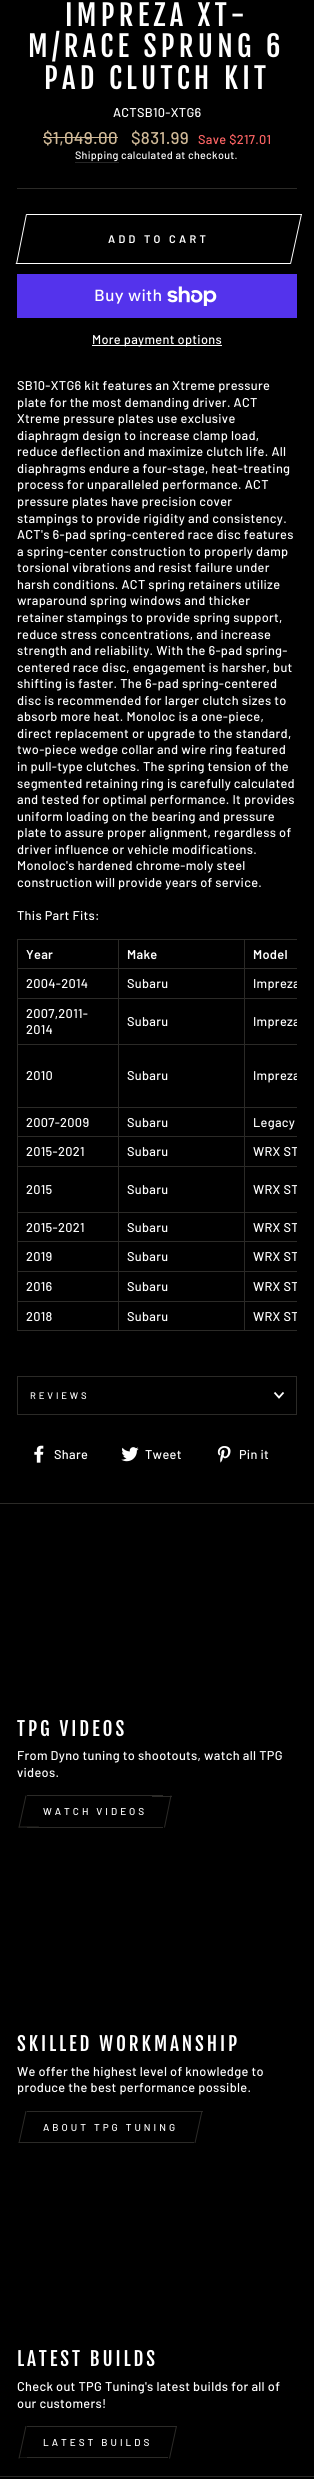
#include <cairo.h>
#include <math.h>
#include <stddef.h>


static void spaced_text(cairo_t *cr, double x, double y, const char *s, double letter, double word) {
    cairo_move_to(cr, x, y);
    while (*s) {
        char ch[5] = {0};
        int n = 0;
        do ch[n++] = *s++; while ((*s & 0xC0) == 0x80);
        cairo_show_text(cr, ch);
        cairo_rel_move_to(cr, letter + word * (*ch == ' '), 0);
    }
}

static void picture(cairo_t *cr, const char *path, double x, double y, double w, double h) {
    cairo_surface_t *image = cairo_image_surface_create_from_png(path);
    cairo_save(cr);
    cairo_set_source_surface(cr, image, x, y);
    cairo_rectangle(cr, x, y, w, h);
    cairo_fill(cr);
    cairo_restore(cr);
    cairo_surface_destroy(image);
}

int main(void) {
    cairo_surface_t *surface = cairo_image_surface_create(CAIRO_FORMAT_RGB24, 314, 2479);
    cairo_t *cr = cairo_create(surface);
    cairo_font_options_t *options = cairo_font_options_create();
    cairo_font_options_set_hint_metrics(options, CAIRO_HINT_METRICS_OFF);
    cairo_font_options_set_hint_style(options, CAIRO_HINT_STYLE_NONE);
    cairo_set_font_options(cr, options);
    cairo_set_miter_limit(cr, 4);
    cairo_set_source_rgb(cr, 0, 0, 0);
    cairo_paint(cr);
    cairo_select_font_face(cr, "Fjalla One", CAIRO_FONT_SLANT_NORMAL, CAIRO_FONT_WEIGHT_NORMAL);
    cairo_set_font_size(cr, 28.5);
    cairo_set_source_rgb(cr, 1, 1, 1);
    spaced_text(cr, 65, 26, "IMPREZA XT-", 4.25, 0);
    spaced_text(cr, 28, 57, "M/RACE SPRUNG 6", 4.25, 0);
    spaced_text(cr, 44, 89, "PAD CLUTCH KIT", 4.25, 0);
    cairo_select_font_face(cr, "Barlow Medium", CAIRO_FONT_SLANT_NORMAL, CAIRO_FONT_WEIGHT_NORMAL);
    cairo_set_font_size(cr, 12.75);
    spaced_text(cr, 113, 117, "ACTSB10-XTG6", 0.3, 0);
    cairo_set_font_size(cr, 17);
    cairo_set_source_rgb(cr, 0.82, 0.729, 0.596);
    spaced_text(cr, 43, 144, "$1,049.00", 0.3, 0);
    cairo_rectangle(cr, 43, 137, 75, 1);
    cairo_fill(cr);
    spaced_text(cr, 131, 144, "$831.99", 0.3, 0);
    cairo_set_font_size(cr, 12.75);
    cairo_set_source_rgb(cr, 1, 0.396, 0.396);
    spaced_text(cr, 198, 144, "Save $217.01", 0.3, 0);
    cairo_set_source_rgb(cr, 0.149, 0.149, 0.149);
    cairo_rectangle(cr, 75, 162, 44, 1);
    cairo_fill(cr);
    cairo_set_font_size(cr, 10.75);
    cairo_set_source_rgb(cr, 1, 1, 1);
    spaced_text(cr, 75, 159, "Shipping", 0.3, 0);
    spaced_text(cr, 121, 159, "calculated at checkout.", 0.3, 0);
    cairo_set_source_rgb(cr, 0.169, 0.165, 0.153);
    cairo_rectangle(cr, 17, 188, 280, 1);
    cairo_fill(cr);
    cairo_set_source_rgb(cr, 1, 1, 1);
    cairo_rectangle(cr, 27, 214, 275, 1);
    cairo_fill(cr);
    cairo_rectangle(cr, 27, 263, 263, 1);
    cairo_fill(cr);
    cairo_new_path(cr);
    cairo_move_to(cr, 16, 263);
    cairo_line_to(cr, 36, 263);
    cairo_line_to(cr, 35.5, 264);
    cairo_line_to(cr, 15.5, 264);
    cairo_close_path(cr);
    cairo_fill(cr);
    cairo_new_path(cr);
    cairo_move_to(cr, 26, 214);
    cairo_line_to(cr, 27, 214);
    cairo_line_to(cr, 17, 264);
    cairo_line_to(cr, 16, 264);
    cairo_close_path(cr);
    cairo_fill(cr);
    cairo_select_font_face(cr, "Barlow SemiBold", CAIRO_FONT_SLANT_NORMAL, CAIRO_FONT_WEIGHT_NORMAL);
    cairo_set_font_size(cr, 11);
    spaced_text(cr, 108, 243, "ADD TO CART", 3.25, 0);
    cairo_new_path(cr);
    cairo_move_to(cr, 301, 214);
    cairo_line_to(cr, 302, 214);
    cairo_line_to(cr, 291, 264);
    cairo_line_to(cr, 290, 264);
    cairo_close_path(cr);
    cairo_fill(cr);
    cairo_set_source_rgb(cr, 0.329, 0.2, 0.922);
    cairo_rectangle(cr, 17, 274, 280, 44);
    cairo_fill(cr);
    cairo_select_font_face(cr, "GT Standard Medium", CAIRO_FONT_SLANT_NORMAL, CAIRO_FONT_WEIGHT_NORMAL);
    cairo_set_font_size(cr, 16);
    cairo_set_source_rgb(cr, 1, 1, 1);
    spaced_text(cr, 94, 301, "Buy with", 0.3, 0);
    picture(cr, "img1.png", 167, 286, 50, 20);
    cairo_rectangle(cr, 92, 345, 130, 1);
    cairo_fill(cr);
    cairo_select_font_face(cr, "Barlow Medium", CAIRO_FONT_SLANT_NORMAL, CAIRO_FONT_WEIGHT_NORMAL);
    cairo_set_font_size(cr, 12.75);
    spaced_text(cr, 92, 344, "More payment options", 0.3, 0);
    spaced_text(cr, 17, 390, "SB10-XTG6 kit features an Xtreme pressure", 0.3, 0);
    spaced_text(cr, 17, 407, "plate for the most demanding driver. ACT", 0.3, 0);
    spaced_text(cr, 17, 423, "Xtreme pressure plates use exclusive", 0.3, 0);
    spaced_text(cr, 17, 440, "diaphragm design to increase clamp load,", 0.3, 0);
    spaced_text(cr, 17, 456, "reduce deflection and maximize clutch life. All", 0.3, 0);
    spaced_text(cr, 17, 473, "diaphragms endure a four-stage, heat-treating", 0.3, 0);
    spaced_text(cr, 17, 489, "process for unparalleled performance. ACT", 0.3, 0);
    spaced_text(cr, 17, 506, "pressure plates have precision cover", 0.3, 0);
    spaced_text(cr, 17, 523, "stampings to provide rigidity and consistency.", 0.3, 0);
    spaced_text(cr, 17, 539, "ACT's 6-pad spring-centered race disc features", 0.3, 0);
    spaced_text(cr, 17, 556, "a spring-center construction to properly damp", 0.3, 0);
    spaced_text(cr, 17, 572, "torsional vibrations and resist failure under", 0.3, 0);
    spaced_text(cr, 17, 589, "harsh conditions. ACT spring retainers utilize", 0.3, 0);
    spaced_text(cr, 17, 605, "wraparound spring windows and thicker", 0.3, 0);
    spaced_text(cr, 17, 622, "retainer stampings to provide spring support,", 0.3, 0);
    spaced_text(cr, 17, 639, "reduce stress concentrations, and increase", 0.3, 0);
    spaced_text(cr, 17, 655, "strength and reliability. With the 6-pad spring-", 0.3, 0);
    spaced_text(cr, 17, 672, "centered race disc, engagement is harsher, but", 0.3, 0);
    spaced_text(cr, 17, 688, "shifting is faster. The 6-pad spring-centered", 0.3, 0);
    spaced_text(cr, 17, 705, "disc is recommended for larger clutch sizes to", 0.3, 0);
    spaced_text(cr, 17, 721, "absorb more heat. Monoloc is a one-piece,", 0.3, 0);
    spaced_text(cr, 17, 738, "direct replacement or upgrade to the standard,", 0.3, 0);
    spaced_text(cr, 17, 754, "two-piece wedge collar and wire ring featured", 0.3, 0);
    spaced_text(cr, 17, 771, "in pull-type clutches. The spring tension of the", 0.3, 0);
    spaced_text(cr, 17, 788, "segmented retaining ring is carefully calculated", 0.3, 0);
    spaced_text(cr, 17, 804, "and tested for optimal performance. It provides", 0.3, 0);
    spaced_text(cr, 17, 821, "uniform loading on the bearing and pressure", 0.3, 0);
    spaced_text(cr, 17, 837, "plate to assure proper alignment, regardless of", 0.3, 0);
    spaced_text(cr, 17, 854, "driver influence or vehicle modifications.", 0.3, 0);
    spaced_text(cr, 17, 870, "Monoloc's hardened chrome-moly steel", 0.3, 0);
    spaced_text(cr, 17, 887, "construction will provide years of service.", 0.3, 0);
    spaced_text(cr, 17, 920, "This Part Fits:", 0.3, 0);
    cairo_set_source_rgb(cr, 0.169, 0.165, 0.153);
    cairo_rectangle(cr, 17, 939, 280, 392);
    cairo_fill(cr);
    cairo_set_source_rgb(cr, 0, 0, 0);
    cairo_rectangle(cr, 18, 940, 100, 28);
    cairo_fill(cr);
    cairo_select_font_face(cr, "Barlow SemiBold", CAIRO_FONT_SLANT_NORMAL, CAIRO_FONT_WEIGHT_NORMAL);
    cairo_set_source_rgb(cr, 1, 1, 1);
    spaced_text(cr, 26, 959, "Year", 0.3, 0);
    cairo_set_source_rgb(cr, 0, 0, 0);
    cairo_rectangle(cr, 119, 940, 125, 28);
    cairo_fill(cr);
    cairo_set_source_rgb(cr, 1, 1, 1);
    spaced_text(cr, 127, 959, "Make", 0.3, 0);
    cairo_set_source_rgb(cr, 0, 0, 0);
    cairo_rectangle(cr, 245, 940, 52, 28);
    cairo_fill(cr);
    cairo_set_source_rgb(cr, 1, 1, 1);
    spaced_text(cr, 253, 959, "Model", 0.3, 0);
    cairo_set_source_rgb(cr, 0, 0, 0);
    cairo_rectangle(cr, 18, 969, 100, 29);
    cairo_fill(cr);
    cairo_select_font_face(cr, "Barlow Medium", CAIRO_FONT_SLANT_NORMAL, CAIRO_FONT_WEIGHT_NORMAL);
    cairo_set_source_rgb(cr, 1, 1, 1);
    spaced_text(cr, 26, 988, "2004-2014", 0.3, 0);
    cairo_set_source_rgb(cr, 0, 0, 0);
    cairo_rectangle(cr, 119, 969, 125, 29);
    cairo_fill(cr);
    cairo_set_source_rgb(cr, 1, 1, 1);
    spaced_text(cr, 127, 988, "Subaru", 0.3, 0);
    cairo_set_source_rgb(cr, 0, 0, 0);
    cairo_rectangle(cr, 245, 969, 52, 29);
    cairo_fill(cr);
    cairo_save(cr);
    cairo_rectangle(cr, 17, 939, 280, 392);
    cairo_clip(cr);
    cairo_set_source_rgb(cr, 1, 1, 1);
    spaced_text(cr, 253, 988, "Impreza", 0.3, 0);
    cairo_restore(cr);
    cairo_rectangle(cr, 18, 999, 100, 45);
    cairo_fill(cr);
    cairo_set_source_rgb(cr, 1, 1, 1);
    spaced_text(cr, 26, 1018, "2007,2011-", 0.3, 0);
    spaced_text(cr, 26, 1034, "2014", 0.3, 0);
    cairo_set_source_rgb(cr, 0, 0, 0);
    cairo_rectangle(cr, 119, 999, 125, 45);
    cairo_fill(cr);
    cairo_set_source_rgb(cr, 1, 1, 1);
    spaced_text(cr, 127, 1026, "Subaru", 0.3, 0);
    cairo_set_source_rgb(cr, 0, 0, 0);
    cairo_rectangle(cr, 245, 999, 52, 45);
    cairo_fill(cr);
    cairo_save(cr);
    cairo_rectangle(cr, 17, 939, 280, 392);
    cairo_clip(cr);
    cairo_set_source_rgb(cr, 1, 1, 1);
    spaced_text(cr, 253, 1026, "Impreza", 0.3, 0);
    cairo_restore(cr);
    cairo_rectangle(cr, 18, 1045, 100, 62);
    cairo_fill(cr);
    cairo_set_source_rgb(cr, 1, 1, 1);
    spaced_text(cr, 26, 1080, "2010", 0.3, 0);
    cairo_set_source_rgb(cr, 0, 0, 0);
    cairo_rectangle(cr, 119, 1045, 125, 62);
    cairo_fill(cr);
    cairo_set_source_rgb(cr, 1, 1, 1);
    spaced_text(cr, 127, 1080, "Subaru", 0.3, 0);
    cairo_set_source_rgb(cr, 0, 0, 0);
    cairo_rectangle(cr, 245, 1045, 52, 62);
    cairo_fill(cr);
    cairo_save(cr);
    cairo_rectangle(cr, 17, 939, 280, 392);
    cairo_clip(cr);
    cairo_set_source_rgb(cr, 1, 1, 1);
    spaced_text(cr, 253, 1080, "Impreza", 0.3, 0);
    cairo_restore(cr);
    cairo_rectangle(cr, 18, 1108, 100, 28);
    cairo_fill(cr);
    cairo_set_source_rgb(cr, 1, 1, 1);
    spaced_text(cr, 26, 1127, "2007-2009", 0.3, 0);
    cairo_set_source_rgb(cr, 0, 0, 0);
    cairo_rectangle(cr, 119, 1108, 125, 28);
    cairo_fill(cr);
    cairo_set_source_rgb(cr, 1, 1, 1);
    spaced_text(cr, 127, 1127, "Subaru", 0.3, 0);
    cairo_set_source_rgb(cr, 0, 0, 0);
    cairo_rectangle(cr, 245, 1108, 52, 28);
    cairo_fill(cr);
    cairo_set_source_rgb(cr, 1, 1, 1);
    spaced_text(cr, 253, 1127, "Legacy", 0.3, 0);
    cairo_set_source_rgb(cr, 0, 0, 0);
    cairo_rectangle(cr, 18, 1137, 100, 29);
    cairo_fill(cr);
    cairo_set_source_rgb(cr, 1, 1, 1);
    spaced_text(cr, 26, 1156, "2015-2021", 0.3, 0);
    cairo_set_source_rgb(cr, 0, 0, 0);
    cairo_rectangle(cr, 119, 1137, 125, 29);
    cairo_fill(cr);
    cairo_set_source_rgb(cr, 1, 1, 1);
    spaced_text(cr, 127, 1156, "Subaru", 0.3, 0);
    cairo_set_source_rgb(cr, 0, 0, 0);
    cairo_rectangle(cr, 245, 1137, 52, 29);
    cairo_fill(cr);
    cairo_save(cr);
    cairo_rectangle(cr, 17, 939, 280, 392);
    cairo_clip(cr);
    cairo_set_source_rgb(cr, 1, 1, 1);
    spaced_text(cr, 253, 1156, "WRX ST", 0.3, 0);
    cairo_restore(cr);
    cairo_rectangle(cr, 18, 1167, 100, 45);
    cairo_fill(cr);
    cairo_set_source_rgb(cr, 1, 1, 1);
    spaced_text(cr, 26, 1194, "2015", 0.3, 0);
    cairo_set_source_rgb(cr, 0, 0, 0);
    cairo_rectangle(cr, 119, 1167, 125, 45);
    cairo_fill(cr);
    cairo_set_source_rgb(cr, 1, 1, 1);
    spaced_text(cr, 127, 1194, "Subaru", 0.3, 0);
    cairo_set_source_rgb(cr, 0, 0, 0);
    cairo_rectangle(cr, 245, 1167, 52, 45);
    cairo_fill(cr);
    cairo_save(cr);
    cairo_rectangle(cr, 17, 939, 280, 392);
    cairo_clip(cr);
    cairo_set_source_rgb(cr, 1, 1, 1);
    spaced_text(cr, 253, 1194, "WRX ST", 0.3, 0);
    cairo_restore(cr);
    cairo_rectangle(cr, 18, 1213, 100, 28);
    cairo_fill(cr);
    cairo_set_source_rgb(cr, 1, 1, 1);
    spaced_text(cr, 26, 1232, "2015-2021", 0.3, 0);
    cairo_set_source_rgb(cr, 0, 0, 0);
    cairo_rectangle(cr, 119, 1213, 125, 28);
    cairo_fill(cr);
    cairo_set_source_rgb(cr, 1, 1, 1);
    spaced_text(cr, 127, 1232, "Subaru", 0.3, 0);
    cairo_set_source_rgb(cr, 0, 0, 0);
    cairo_rectangle(cr, 245, 1213, 52, 28);
    cairo_fill(cr);
    cairo_save(cr);
    cairo_rectangle(cr, 17, 939, 280, 392);
    cairo_clip(cr);
    cairo_set_source_rgb(cr, 1, 1, 1);
    spaced_text(cr, 253, 1232, "WRX ST", 0.3, 0);
    cairo_restore(cr);
    cairo_rectangle(cr, 18, 1242, 100, 29);
    cairo_fill(cr);
    cairo_set_source_rgb(cr, 1, 1, 1);
    spaced_text(cr, 26, 1261, "2019", 0.3, 0);
    cairo_set_source_rgb(cr, 0, 0, 0);
    cairo_rectangle(cr, 119, 1242, 125, 29);
    cairo_fill(cr);
    cairo_set_source_rgb(cr, 1, 1, 1);
    spaced_text(cr, 127, 1261, "Subaru", 0.3, 0);
    cairo_set_source_rgb(cr, 0, 0, 0);
    cairo_rectangle(cr, 245, 1242, 52, 29);
    cairo_fill(cr);
    cairo_save(cr);
    cairo_rectangle(cr, 17, 939, 280, 392);
    cairo_clip(cr);
    cairo_set_source_rgb(cr, 1, 1, 1);
    spaced_text(cr, 253, 1261, "WRX ST", 0.3, 0);
    cairo_restore(cr);
    cairo_rectangle(cr, 18, 1272, 100, 29);
    cairo_fill(cr);
    cairo_set_source_rgb(cr, 1, 1, 1);
    spaced_text(cr, 26, 1291, "2016", 0.3, 0);
    cairo_set_source_rgb(cr, 0, 0, 0);
    cairo_rectangle(cr, 119, 1272, 125, 29);
    cairo_fill(cr);
    cairo_set_source_rgb(cr, 1, 1, 1);
    spaced_text(cr, 127, 1291, "Subaru", 0.3, 0);
    cairo_set_source_rgb(cr, 0, 0, 0);
    cairo_rectangle(cr, 245, 1272, 52, 29);
    cairo_fill(cr);
    cairo_save(cr);
    cairo_rectangle(cr, 17, 939, 280, 392);
    cairo_clip(cr);
    cairo_set_source_rgb(cr, 1, 1, 1);
    spaced_text(cr, 253, 1291, "WRX ST", 0.3, 0);
    cairo_restore(cr);
    cairo_rectangle(cr, 18, 1302, 100, 28);
    cairo_fill(cr);
    cairo_set_source_rgb(cr, 1, 1, 1);
    spaced_text(cr, 26, 1321, "2018", 0.3, 0);
    cairo_set_source_rgb(cr, 0, 0, 0);
    cairo_rectangle(cr, 119, 1302, 125, 28);
    cairo_fill(cr);
    cairo_set_source_rgb(cr, 1, 1, 1);
    spaced_text(cr, 127, 1321, "Subaru", 0.3, 0);
    cairo_set_source_rgb(cr, 0, 0, 0);
    cairo_rectangle(cr, 245, 1302, 52, 28);
    cairo_fill(cr);
    cairo_save(cr);
    cairo_rectangle(cr, 17, 939, 280, 392);
    cairo_clip(cr);
    cairo_set_source_rgb(cr, 1, 1, 1);
    spaced_text(cr, 253, 1321, "WRX ST", 0.3, 0);
    cairo_restore(cr);
    cairo_set_source_rgb(cr, 0.169, 0.165, 0.153);
    cairo_rectangle(cr, 17, 1414, 280, 1);
    cairo_fill(cr);
    cairo_rectangle(cr, 17, 1376, 280, 1);
    cairo_fill(cr);
    cairo_rectangle(cr, 296, 1376, 1, 38);
    cairo_fill(cr);
    cairo_rectangle(cr, 17, 1376, 1, 38);
    cairo_fill(cr);
    cairo_set_font_size(cr, 9.5);
    cairo_set_source_rgb(cr, 1, 1, 1);
    spaced_text(cr, 30, 1399, "REVIEWS", 2.9, 0);
    cairo_new_path(cr);
    cairo_move_to(cr, 274.5, 1392.5);
    cairo_line_to(cr, 279, 1397.5);
    cairo_line_to(cr, 283.5, 1392.5);
    cairo_set_line_width(cr, 1.8);
    cairo_stroke(cr);
    picture(cr, "img2.png", 34, 1445, 10, 18);
    cairo_set_font_size(cr, 12.75);
    spaced_text(cr, 54, 1459, "Share", 0.3, 0);
    picture(cr, "img3.png", 121, 1447, 18, 15);
    spaced_text(cr, 145, 1459, "Tweet", 0.3, 0);
    picture(cr, "img4.png", 217, 1446, 14, 17);
    spaced_text(cr, 239, 1459, "Pin it", 0.3, 0);
    cairo_set_source_rgb(cr, 0.169, 0.165, 0.153);
    cairo_rectangle(cr, 0, 1503, 314, 1);
    cairo_fill(cr);
    cairo_select_font_face(cr, "Fjalla One", CAIRO_FONT_SLANT_NORMAL, CAIRO_FONT_WEIGHT_NORMAL);
    cairo_set_font_size(cr, 19.1);
    cairo_set_source_rgb(cr, 1, 1, 1);
    spaced_text(cr, 17, 1736, "TPG VIDEOS", 2.9, 0);
    cairo_select_font_face(cr, "Barlow Medium", CAIRO_FONT_SLANT_NORMAL, CAIRO_FONT_WEIGHT_NORMAL);
    cairo_set_font_size(cr, 12.75);
    spaced_text(cr, 17, 1760, "From Dyno tuning to shootouts, watch all TPG", 0.3, 0);
    spaced_text(cr, 17, 1777, "videos.", 0.3, 0);
    cairo_set_source_rgb(cr, 0.169, 0.165, 0.153);
    cairo_rectangle(cr, 27, 1795, 136, 1);
    cairo_fill(cr);
    cairo_rectangle(cr, 27, 1827, 136, 1);
    cairo_fill(cr);
    cairo_new_path(cr);
    cairo_move_to(cr, 19, 1826.5);
    cairo_line_to(cr, 39, 1826.5);
    cairo_line_to(cr, 38.5, 1827.5);
    cairo_line_to(cr, 18.5, 1827.5);
    cairo_close_path(cr);
    cairo_fill(cr);
    cairo_new_path(cr);
    cairo_move_to(cr, 25.5, 1795.5);
    cairo_line_to(cr, 26.5, 1795.5);
    cairo_line_to(cr, 19.5, 1827.5);
    cairo_line_to(cr, 18.5, 1827.5);
    cairo_close_path(cr);
    cairo_fill(cr);
    cairo_set_font_size(cr, 10);
    cairo_set_source_rgb(cr, 1, 1, 1);
    spaced_text(cr, 43, 1815, "WATCH VIDEOS", 3, 0);
    cairo_set_source_rgb(cr, 0.169, 0.165, 0.153);
    cairo_rectangle(cr, 152, 1796, 20, 1);
    cairo_fill(cr);
    cairo_new_path(cr);
    cairo_move_to(cr, 170.5, 1795.5);
    cairo_line_to(cr, 171.5, 1795.5);
    cairo_line_to(cr, 165, 1827.5);
    cairo_line_to(cr, 164, 1827.5);
    cairo_close_path(cr);
    cairo_fill(cr);
    cairo_select_font_face(cr, "Fjalla One", CAIRO_FONT_SLANT_NORMAL, CAIRO_FONT_WEIGHT_NORMAL);
    cairo_set_font_size(cr, 19.1);
    cairo_set_source_rgb(cr, 1, 1, 1);
    spaced_text(cr, 17, 2051, "SKILLED WORKMANSHIP", 2.9, 0);
    cairo_select_font_face(cr, "Barlow Medium", CAIRO_FONT_SLANT_NORMAL, CAIRO_FONT_WEIGHT_NORMAL);
    cairo_set_font_size(cr, 12.75);
    spaced_text(cr, 17, 2076, "We offer the highest level of knowledge to", 0.3, 0);
    spaced_text(cr, 17, 2092, "produce the best performance possible.", 0.3, 0);
    cairo_set_source_rgb(cr, 0.169, 0.165, 0.153);
    cairo_rectangle(cr, 27, 2111, 176, 1);
    cairo_fill(cr);
    cairo_rectangle(cr, 38, 2142, 156, 1);
    cairo_fill(cr);
    cairo_new_path(cr);
    cairo_move_to(cr, 19, 2142);
    cairo_line_to(cr, 39, 2142);
    cairo_line_to(cr, 38.5, 2143);
    cairo_line_to(cr, 18.5, 2143);
    cairo_close_path(cr);
    cairo_fill(cr);
    cairo_new_path(cr);
    cairo_move_to(cr, 25.5, 2111);
    cairo_line_to(cr, 26.5, 2111);
    cairo_line_to(cr, 19.5, 2143);
    cairo_line_to(cr, 18.5, 2143);
    cairo_close_path(cr);
    cairo_fill(cr);
    cairo_set_font_size(cr, 10);
    cairo_set_source_rgb(cr, 1, 1, 1);
    spaced_text(cr, 43, 2131, "ABOUT TPG TUNING", 3, 0);
    cairo_set_source_rgb(cr, 0.169, 0.165, 0.153);
    cairo_new_path(cr);
    cairo_move_to(cr, 201.5, 2111);
    cairo_line_to(cr, 202.5, 2111);
    cairo_line_to(cr, 195.5, 2143);
    cairo_line_to(cr, 194.5, 2143);
    cairo_close_path(cr);
    cairo_fill(cr);
    cairo_select_font_face(cr, "Fjalla One", CAIRO_FONT_SLANT_NORMAL, CAIRO_FONT_WEIGHT_NORMAL);
    cairo_set_font_size(cr, 19.1);
    cairo_set_source_rgb(cr, 1, 1, 1);
    spaced_text(cr, 17, 2366, "LATEST BUILDS", 2.9, 0);
    cairo_select_font_face(cr, "Barlow Medium", CAIRO_FONT_SLANT_NORMAL, CAIRO_FONT_WEIGHT_NORMAL);
    cairo_set_font_size(cr, 12.75);
    spaced_text(cr, 17, 2391, "Check out TPG Tuning's latest builds for all of", 0.3, 0);
    spaced_text(cr, 17, 2408, "our customers!", 0.3, 0);
    cairo_set_source_rgb(cr, 0.169, 0.165, 0.153);
    cairo_rectangle(cr, 27, 2426, 130, 1);
    cairo_fill(cr);
    cairo_rectangle(cr, 27, 2457, 141, 1);
    cairo_fill(cr);
    cairo_save(cr);
    cairo_rectangle(cr, 0, 1544, 297, 914);
    cairo_clip(cr);
    cairo_new_path(cr);
    cairo_move_to(cr, 19, 2457.5);
    cairo_line_to(cr, 39, 2457.5);
    cairo_line_to(cr, 38.5, 2458.5);
    cairo_line_to(cr, 18.5, 2458.5);
    cairo_close_path(cr);
    cairo_fill(cr);
    cairo_restore(cr);
    cairo_new_path(cr);
    cairo_move_to(cr, 25.5, 2426);
    cairo_line_to(cr, 26.5, 2426);
    cairo_line_to(cr, 19.5, 2458.5);
    cairo_line_to(cr, 18.5, 2458.5);
    cairo_close_path(cr);
    cairo_fill(cr);
    cairo_set_font_size(cr, 10);
    cairo_set_source_rgb(cr, 1, 1, 1);
    spaced_text(cr, 43, 2446, "LATEST BUILDS", 3, 0);
    cairo_set_source_rgb(cr, 0.169, 0.165, 0.153);
    cairo_new_path(cr);
    cairo_move_to(cr, 157, 2426);
    cairo_line_to(cr, 177, 2426);
    cairo_line_to(cr, 176.5, 2427);
    cairo_line_to(cr, 156.5, 2427);
    cairo_close_path(cr);
    cairo_fill(cr);
    cairo_new_path(cr);
    cairo_move_to(cr, 176, 2426);
    cairo_line_to(cr, 177, 2426);
    cairo_line_to(cr, 170, 2458.5);
    cairo_line_to(cr, 169, 2458.5);
    cairo_close_path(cr);
    cairo_fill(cr);
    cairo_rectangle(cr, 0, 2476, 314, 1);
    cairo_fill(cr);
    cairo_surface_write_to_png(surface, "page.png");
    cairo_font_options_destroy(options);
    cairo_destroy(cr);
    cairo_surface_destroy(surface);
    return 0;
}
